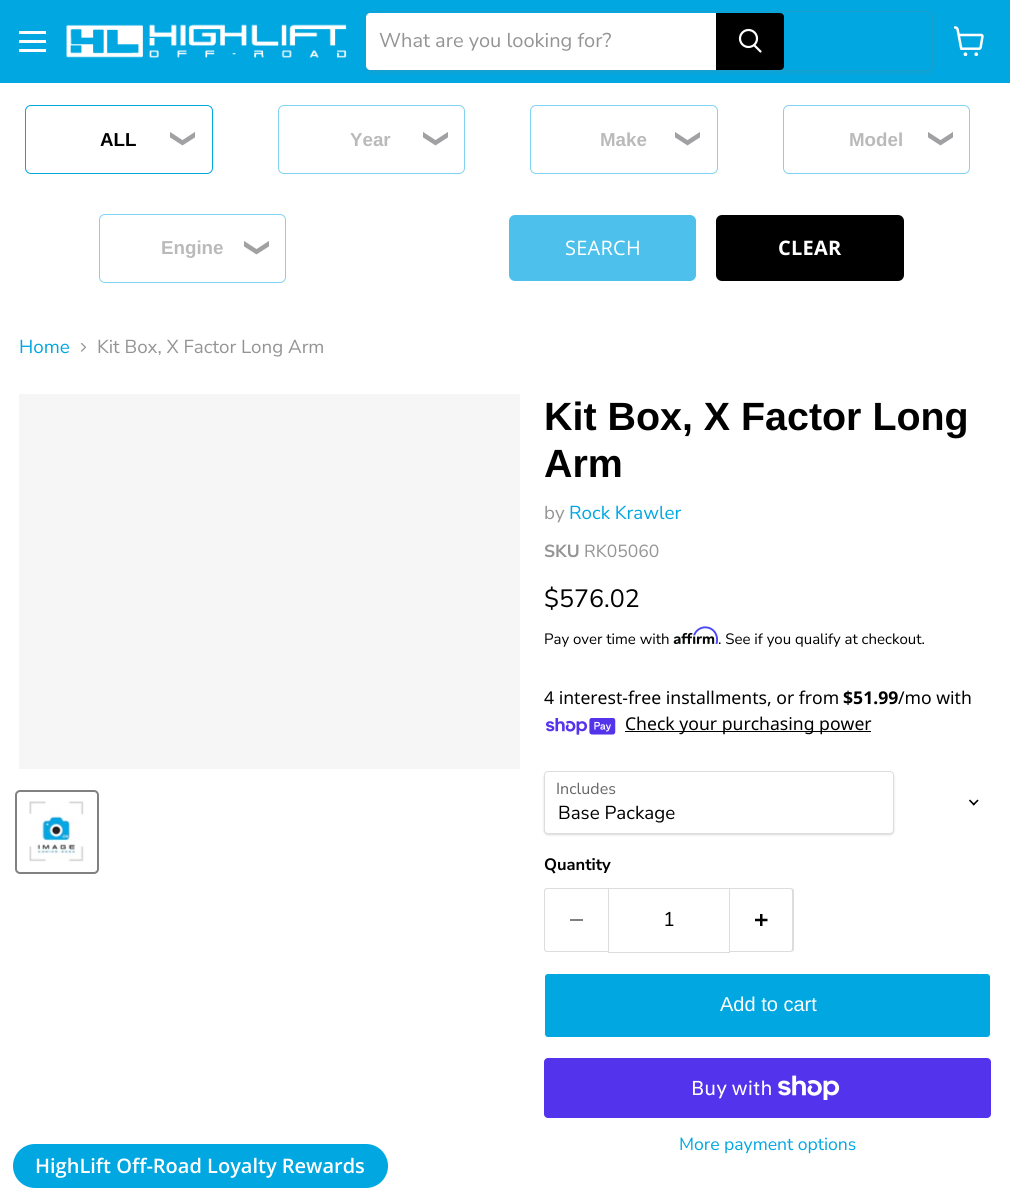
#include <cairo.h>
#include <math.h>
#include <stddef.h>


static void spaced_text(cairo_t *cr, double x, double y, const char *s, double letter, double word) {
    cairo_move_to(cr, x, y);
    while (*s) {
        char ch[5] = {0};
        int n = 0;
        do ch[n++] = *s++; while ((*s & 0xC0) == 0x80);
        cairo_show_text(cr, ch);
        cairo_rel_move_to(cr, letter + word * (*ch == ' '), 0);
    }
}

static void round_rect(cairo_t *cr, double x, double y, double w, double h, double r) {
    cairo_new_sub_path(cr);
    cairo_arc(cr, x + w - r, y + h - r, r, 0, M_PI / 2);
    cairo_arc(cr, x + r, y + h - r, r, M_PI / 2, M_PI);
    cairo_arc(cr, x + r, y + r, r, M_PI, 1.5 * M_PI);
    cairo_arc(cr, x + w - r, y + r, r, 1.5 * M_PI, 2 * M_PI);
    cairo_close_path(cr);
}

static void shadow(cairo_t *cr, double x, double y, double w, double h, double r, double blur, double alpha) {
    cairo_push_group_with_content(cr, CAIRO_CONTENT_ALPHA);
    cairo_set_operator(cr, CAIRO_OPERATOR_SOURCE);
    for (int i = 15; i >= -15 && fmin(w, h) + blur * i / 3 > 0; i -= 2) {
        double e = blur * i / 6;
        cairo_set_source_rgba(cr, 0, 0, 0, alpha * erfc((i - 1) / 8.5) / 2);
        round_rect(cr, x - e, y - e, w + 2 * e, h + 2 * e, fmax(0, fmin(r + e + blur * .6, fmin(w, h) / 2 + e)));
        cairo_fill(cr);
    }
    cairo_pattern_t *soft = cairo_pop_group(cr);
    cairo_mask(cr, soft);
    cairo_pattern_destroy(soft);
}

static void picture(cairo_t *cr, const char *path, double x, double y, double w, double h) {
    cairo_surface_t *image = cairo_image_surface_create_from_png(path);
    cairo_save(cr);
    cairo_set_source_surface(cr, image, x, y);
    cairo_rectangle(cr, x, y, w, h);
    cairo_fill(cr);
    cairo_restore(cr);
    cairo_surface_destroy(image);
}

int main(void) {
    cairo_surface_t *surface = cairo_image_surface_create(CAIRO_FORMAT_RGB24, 1010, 1199);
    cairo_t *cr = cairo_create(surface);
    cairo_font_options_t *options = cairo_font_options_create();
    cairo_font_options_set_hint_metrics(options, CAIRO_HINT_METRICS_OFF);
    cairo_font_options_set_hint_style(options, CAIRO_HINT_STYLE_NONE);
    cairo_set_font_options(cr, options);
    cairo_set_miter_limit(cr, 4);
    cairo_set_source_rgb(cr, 1, 1, 1);
    cairo_paint(cr);
    cairo_set_source_rgb(cr, 0, 0.655, 0.882);
    cairo_rectangle(cr, 0, 0, 1010, 83);
    cairo_fill(cr);
    cairo_set_source_rgb(cr, 1, 1, 1);
    cairo_rectangle(cr, 19, 31, 27, 3);
    cairo_fill(cr);
    cairo_rectangle(cr, 19, 40, 27, 3);
    cairo_fill(cr);
    cairo_rectangle(cr, 19, 49, 27, 3);
    cairo_fill(cr);
    picture(cr, "img1.png", 66, 24, 281, 34);
    cairo_save(cr);
    cairo_set_fill_rule(cr, CAIRO_FILL_RULE_EVEN_ODD);
    cairo_new_path(cr);
    cairo_move_to(cr, 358, 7);
    cairo_line_to(cr, 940, 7);
    cairo_line_to(cr, 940, 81);
    cairo_line_to(cr, 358, 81);
    cairo_close_path(cr);
    cairo_move_to(cr, 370, 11);
    cairo_line_to(cr, 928, 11);
    cairo_curve_to(cr, 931, 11, 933, 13, 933, 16);
    cairo_line_to(cr, 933, 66);
    cairo_curve_to(cr, 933, 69, 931, 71, 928, 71);
    cairo_line_to(cr, 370, 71);
    cairo_curve_to(cr, 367, 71, 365, 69, 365, 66);
    cairo_line_to(cr, 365, 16);
    cairo_curve_to(cr, 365, 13, 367, 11, 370, 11);
    cairo_close_path(cr);
    cairo_clip(cr);
    cairo_set_source_rgb(cr, 0.502, 0.502, 0.502);
    shadow(cr, 365, 14, 568, 60, 5, 2, 0.11);
    cairo_restore(cr);
    round_rect(cr, 365.5, 11.5, 567, 59, 4.5);
    cairo_set_source_rgba(cr, 0.502, 0.502, 0.502, 0.2);
    cairo_set_line_width(cr, 1);
    cairo_stroke(cr);
    cairo_set_source_rgb(cr, 1, 1, 1);
    cairo_new_path(cr);
    cairo_move_to(cr, 370, 13);
    cairo_line_to(cr, 716, 13);
    cairo_line_to(cr, 716, 70);
    cairo_line_to(cr, 370, 70);
    cairo_curve_to(cr, 368, 70, 366, 68, 366, 66);
    cairo_line_to(cr, 366, 17);
    cairo_curve_to(cr, 366, 15, 368, 13, 370, 13);
    cairo_close_path(cr);
    cairo_fill(cr);
    cairo_select_font_face(cr, "Nunito Sans", CAIRO_FONT_SLANT_NORMAL, CAIRO_FONT_WEIGHT_NORMAL);
    cairo_set_font_size(cr, 20);
    cairo_set_source_rgb(cr, 0.58, 0.58, 0.58);
    cairo_move_to(cr, 379, 47);
    cairo_show_text(cr, "What are you looking for?");
    cairo_set_source_rgb(cr, 0, 0, 0);
    cairo_new_path(cr);
    cairo_move_to(cr, 716.5, 13.5);
    cairo_line_to(cr, 780, 13.5);
    cairo_curve_to(cr, 782, 13.5, 783.5, 15, 783.5, 17);
    cairo_line_to(cr, 783.5, 66);
    cairo_curve_to(cr, 783.5, 68, 782, 69.5, 780, 69.5);
    cairo_line_to(cr, 716.5, 69.5);
    cairo_close_path(cr);
    cairo_fill_preserve(cr);
    cairo_stroke(cr);
    cairo_new_path(cr);
    cairo_move_to(cr, 760.5, 51.5);
    cairo_line_to(cr, 754.5, 45.5);
    cairo_set_source_rgb(cr, 1, 1, 1);
    cairo_set_line_width(cr, 2.2);
    cairo_set_line_cap(cr, CAIRO_LINE_CAP_ROUND);
    cairo_stroke(cr);
    cairo_arc(cr, 748.5, 38.5, 8.5, 0, 2 * M_PI);
    cairo_set_line_cap(cr, CAIRO_LINE_CAP_BUTT);
    cairo_stroke(cr);
    picture(cr, "img2.png", 954, 26, 30, 30);
    round_rect(cr, 25.5, 105.5, 187, 68, 5.5);
    cairo_set_source_rgb(cr, 0, 0.655, 0.882);
    cairo_set_line_width(cr, 1);
    cairo_stroke(cr);
    cairo_select_font_face(cr, "Liberation Sans", CAIRO_FONT_SLANT_NORMAL, CAIRO_FONT_WEIGHT_BOLD);
    cairo_set_font_size(cr, 18.75);
    cairo_set_source_rgb(cr, 0, 0, 0);
    cairo_move_to(cr, 100, 146);
    cairo_show_text(cr, "ALL");
    cairo_select_font_face(cr, "DejaVu Sans", CAIRO_FONT_SLANT_NORMAL, CAIRO_FONT_WEIGHT_NORMAL);
    cairo_set_font_size(cr, 25);
    cairo_set_source_rgb(cr, 0.631, 0.631, 0.643);
    cairo_save(cr);
    cairo_translate(cr, 189, 149);
    cairo_rotate(cr, -90 * M_PI / 180);
    cairo_move_to(cr, 0, 0);
    cairo_show_text(cr, "❮");
    cairo_restore(cr);
    round_rect(cr, 278.5, 105.5, 186, 68, 5.5);
    cairo_set_source_rgb(cr, 0.502, 0.827, 0.941);
    cairo_stroke(cr);
    cairo_select_font_face(cr, "Liberation Sans", CAIRO_FONT_SLANT_NORMAL, CAIRO_FONT_WEIGHT_BOLD);
    cairo_set_font_size(cr, 18.75);
    cairo_set_source_rgb(cr, 0.729, 0.729, 0.729);
    cairo_move_to(cr, 350, 146);
    cairo_show_text(cr, "Year");
    cairo_select_font_face(cr, "DejaVu Sans", CAIRO_FONT_SLANT_NORMAL, CAIRO_FONT_WEIGHT_NORMAL);
    cairo_set_font_size(cr, 25);
    cairo_set_source_rgb(cr, 0.631, 0.631, 0.643);
    cairo_save(cr);
    cairo_translate(cr, 442, 149);
    cairo_rotate(cr, -90 * M_PI / 180);
    cairo_move_to(cr, 0, 0);
    cairo_show_text(cr, "❮");
    cairo_restore(cr);
    round_rect(cr, 530.5, 105.5, 187, 68, 5.5);
    cairo_set_source_rgb(cr, 0.502, 0.827, 0.941);
    cairo_stroke(cr);
    cairo_select_font_face(cr, "Liberation Sans", CAIRO_FONT_SLANT_NORMAL, CAIRO_FONT_WEIGHT_BOLD);
    cairo_set_font_size(cr, 18.75);
    cairo_set_source_rgb(cr, 0.729, 0.729, 0.729);
    cairo_move_to(cr, 600, 146);
    cairo_show_text(cr, "Make");
    cairo_select_font_face(cr, "DejaVu Sans", CAIRO_FONT_SLANT_NORMAL, CAIRO_FONT_WEIGHT_NORMAL);
    cairo_set_font_size(cr, 25);
    cairo_set_source_rgb(cr, 0.631, 0.631, 0.643);
    cairo_save(cr);
    cairo_translate(cr, 694, 149);
    cairo_rotate(cr, -90 * M_PI / 180);
    cairo_move_to(cr, 0, 0);
    cairo_show_text(cr, "❮");
    cairo_restore(cr);
    round_rect(cr, 783.5, 105.5, 186, 68, 5.5);
    cairo_set_source_rgb(cr, 0.502, 0.827, 0.941);
    cairo_stroke(cr);
    cairo_select_font_face(cr, "Liberation Sans", CAIRO_FONT_SLANT_NORMAL, CAIRO_FONT_WEIGHT_BOLD);
    cairo_set_font_size(cr, 18.75);
    cairo_set_source_rgb(cr, 0.729, 0.729, 0.729);
    cairo_move_to(cr, 849, 146);
    cairo_show_text(cr, "Model");
    cairo_select_font_face(cr, "DejaVu Sans", CAIRO_FONT_SLANT_NORMAL, CAIRO_FONT_WEIGHT_NORMAL);
    cairo_set_font_size(cr, 25);
    cairo_set_source_rgb(cr, 0.631, 0.631, 0.643);
    cairo_save(cr);
    cairo_translate(cr, 947, 149);
    cairo_rotate(cr, -90 * M_PI / 180);
    cairo_move_to(cr, 0, 0);
    cairo_show_text(cr, "❮");
    cairo_restore(cr);
    round_rect(cr, 99.5, 214.5, 186, 68, 5.5);
    cairo_set_source_rgb(cr, 0.502, 0.827, 0.941);
    cairo_stroke(cr);
    cairo_select_font_face(cr, "Liberation Sans", CAIRO_FONT_SLANT_NORMAL, CAIRO_FONT_WEIGHT_BOLD);
    cairo_set_font_size(cr, 18.75);
    cairo_set_source_rgb(cr, 0.729, 0.729, 0.729);
    cairo_move_to(cr, 161, 254);
    cairo_show_text(cr, "Engine");
    cairo_select_font_face(cr, "DejaVu Sans", CAIRO_FONT_SLANT_NORMAL, CAIRO_FONT_WEIGHT_NORMAL);
    cairo_set_font_size(cr, 25);
    cairo_set_source_rgb(cr, 0.631, 0.631, 0.643);
    cairo_save(cr);
    cairo_translate(cr, 263, 258);
    cairo_rotate(cr, -90 * M_PI / 180);
    cairo_move_to(cr, 0, 0);
    cairo_show_text(cr, "❮");
    cairo_restore(cr);
    cairo_set_source_rgb(cr, 0.302, 0.757, 0.918);
    round_rect(cr, 509, 215, 187, 66, 6);
    cairo_fill(cr);
    cairo_select_font_face(cr, "Open Sans", CAIRO_FONT_SLANT_NORMAL, CAIRO_FONT_WEIGHT_NORMAL);
    cairo_set_font_size(cr, 20);
    cairo_set_source_rgb(cr, 1, 1, 1);
    spaced_text(cr, 565, 255, "SEARCH", 0.25, 0);
    cairo_set_source_rgb(cr, 0, 0, 0);
    round_rect(cr, 716, 215, 188, 66, 6);
    cairo_fill(cr);
    cairo_select_font_face(cr, "Open Sans", CAIRO_FONT_SLANT_NORMAL, CAIRO_FONT_WEIGHT_BOLD);
    cairo_set_source_rgb(cr, 1, 1, 1);
    spaced_text(cr, 778, 255, "CLEAR", 0.25, 0);
    cairo_select_font_face(cr, "Nunito Sans", CAIRO_FONT_SLANT_NORMAL, CAIRO_FONT_WEIGHT_NORMAL);
    cairo_set_font_size(cr, 18.75);
    cairo_set_source_rgb(cr, 0, 0.655, 0.882);
    cairo_move_to(cr, 19, 353);
    cairo_show_text(cr, "Home");
    picture(cr, "img3.png", 80, 343, 6, 9);
    cairo_set_source_rgb(cr, 0.58, 0.58, 0.58);
    cairo_move_to(cr, 97, 353);
    cairo_show_text(cr, "Kit Box, X Factor Long Arm");
    cairo_set_source_rgb(cr, 0.961, 0.961, 0.961);
    cairo_rectangle(cr, 19, 394, 501, 375);
    cairo_fill(cr);
    round_rect(cr, 16, 791, 82, 82, 4);
    cairo_set_source_rgb(cr, 0.506, 0.506, 0.506);
    cairo_set_line_width(cr, 2);
    cairo_stroke(cr);
    picture(cr, "img4.png", 29, 801, 55, 61);
    cairo_select_font_face(cr, "Liberation Sans", CAIRO_FONT_SLANT_NORMAL, CAIRO_FONT_WEIGHT_BOLD);
    cairo_set_font_size(cr, 39.4);
    cairo_set_source_rgb(cr, 0, 0, 0);
    cairo_move_to(cr, 544, 430);
    cairo_show_text(cr, "Kit Box, X Factor Long");
    cairo_move_to(cr, 544, 477);
    cairo_show_text(cr, "Arm");
    cairo_select_font_face(cr, "Nunito Sans", CAIRO_FONT_SLANT_NORMAL, CAIRO_FONT_WEIGHT_NORMAL);
    cairo_set_font_size(cr, 18.75);
    cairo_set_source_rgb(cr, 0.58, 0.58, 0.58);
    cairo_move_to(cr, 544, 519);
    cairo_show_text(cr, "by");
    cairo_set_source_rgb(cr, 0, 0.655, 0.882);
    cairo_move_to(cr, 569, 519);
    cairo_show_text(cr, "Rock Krawler");
    cairo_select_font_face(cr, "Nunito Sans", CAIRO_FONT_SLANT_NORMAL, CAIRO_FONT_WEIGHT_BOLD);
    cairo_set_font_size(cr, 17.5);
    cairo_set_source_rgb(cr, 0.58, 0.58, 0.58);
    cairo_move_to(cr, 544, 557);
    cairo_show_text(cr, "SKU");
    cairo_select_font_face(cr, "Nunito Sans", CAIRO_FONT_SLANT_NORMAL, CAIRO_FONT_WEIGHT_NORMAL);
    cairo_move_to(cr, 584, 557);
    cairo_show_text(cr, "RK05060");
    cairo_set_font_size(cr, 25);
    cairo_set_source_rgb(cr, 0, 0, 0);
    cairo_move_to(cr, 544, 607);
    cairo_show_text(cr, "$576.02");
    cairo_set_font_size(cr, 15);
    cairo_move_to(cr, 544, 644);
    cairo_show_text(cr, "Pay over time with");
    picture(cr, "img6.png", 673, 632, 42, 13);
    picture(cr, "img5.png", 693, 626, 25, 18);
    cairo_move_to(cr, 718, 644);
    cairo_show_text(cr, ". See if you qualify at checkout.");
    cairo_select_font_face(cr, "Noto Sans", CAIRO_FONT_SLANT_NORMAL, CAIRO_FONT_WEIGHT_NORMAL);
    cairo_set_font_size(cr, 17.6);
    cairo_move_to(cr, 544, 704);
    cairo_show_text(cr, "4 interest-free installments, or from");
    cairo_select_font_face(cr, "Noto Sans", CAIRO_FONT_SLANT_NORMAL, CAIRO_FONT_WEIGHT_BOLD);
    cairo_move_to(cr, 843, 704);
    cairo_show_text(cr, "$51.99");
    cairo_select_font_face(cr, "Noto Sans", CAIRO_FONT_SLANT_NORMAL, CAIRO_FONT_WEIGHT_NORMAL);
    cairo_move_to(cr, 898, 704);
    cairo_show_text(cr, "/mo with");
    picture(cr, "img7.png", 546, 718, 70, 17);
    cairo_rectangle(cr, 625, 731, 246, 1);
    cairo_fill(cr);
    cairo_move_to(cr, 625, 730);
    cairo_show_text(cr, "Check your purchasing power");
    cairo_set_source_rgb(cr, 0, 0, 0);
    shadow(cr, 544, 773, 350, 62, 4, 1, 0.15);
    cairo_set_source_rgb(cr, 1, 1, 1);
    round_rect(cr, 544.5, 771.5, 349, 62, 3.5);
    cairo_fill_preserve(cr);
    cairo_set_source_rgb(cr, 0.867, 0.867, 0.867);
    cairo_set_line_width(cr, 1);
    cairo_stroke(cr);
    cairo_select_font_face(cr, "Nunito Sans", CAIRO_FONT_SLANT_NORMAL, CAIRO_FONT_WEIGHT_NORMAL);
    cairo_set_font_size(cr, 16);
    cairo_set_source_rgb(cr, 0.4, 0.4, 0.4);
    cairo_move_to(cr, 556, 794);
    cairo_show_text(cr, "Includes");
    picture(cr, "img8.png", 969, 799, 10, 7);
    cairo_set_font_size(cr, 18.75);
    cairo_set_source_rgb(cr, 0, 0, 0);
    cairo_move_to(cr, 558, 819);
    cairo_show_text(cr, "Base Package");
    cairo_select_font_face(cr, "Nunito Sans", CAIRO_FONT_SLANT_NORMAL, CAIRO_FONT_WEIGHT_BOLD);
    cairo_set_font_size(cr, 16.5);
    cairo_move_to(cr, 544, 870);
    cairo_show_text(cr, "Quantity");
    cairo_set_source_rgb(cr, 0.867, 0.867, 0.867);
    cairo_set_fill_rule(cr, CAIRO_FILL_RULE_EVEN_ODD);
    cairo_new_path(cr);
    cairo_move_to(cr, 548, 888);
    cairo_line_to(cr, 608, 888);
    cairo_line_to(cr, 608, 952);
    cairo_line_to(cr, 548, 952);
    cairo_curve_to(cr, 545, 952, 544, 951, 544, 949);
    cairo_line_to(cr, 544, 891);
    cairo_curve_to(cr, 544, 889, 545, 888, 548, 888);
    cairo_close_path(cr);
    cairo_move_to(cr, 548, 889);
    cairo_line_to(cr, 608, 889);
    cairo_line_to(cr, 608, 951);
    cairo_line_to(cr, 548, 951);
    cairo_curve_to(cr, 546, 951, 545, 950, 545, 949);
    cairo_line_to(cr, 545, 891);
    cairo_curve_to(cr, 545, 890, 546, 889, 548, 889);
    cairo_close_path(cr);
    cairo_fill(cr);
    cairo_set_source_rgb(cr, 0.502, 0.502, 0.502);
    cairo_rectangle(cr, 570, 919, 13, 2);
    cairo_fill(cr);
    cairo_rectangle(cr, 608.5, 888.5, 121, 64);
    cairo_set_source_rgb(cr, 0.867, 0.867, 0.867);
    cairo_stroke(cr);
    cairo_select_font_face(cr, "Nunito Sans", CAIRO_FONT_SLANT_NORMAL, CAIRO_FONT_WEIGHT_NORMAL);
    cairo_set_font_size(cr, 20);
    cairo_set_source_rgb(cr, 0, 0, 0);
    cairo_move_to(cr, 663, 926);
    cairo_show_text(cr, "1");
    cairo_set_source_rgb(cr, 0.867, 0.867, 0.867);
    cairo_new_path(cr);
    cairo_move_to(cr, 730, 888);
    cairo_line_to(cr, 790, 888);
    cairo_curve_to(cr, 792, 888, 794, 889, 794, 891);
    cairo_line_to(cr, 794, 949);
    cairo_curve_to(cr, 794, 951, 792, 952, 790, 952);
    cairo_line_to(cr, 730, 952);
    cairo_close_path(cr);
    cairo_move_to(cr, 730, 889);
    cairo_line_to(cr, 790, 889);
    cairo_curve_to(cr, 791, 889, 792, 890, 792, 891);
    cairo_line_to(cr, 792, 949);
    cairo_curve_to(cr, 792, 950, 791, 951, 790, 951);
    cairo_line_to(cr, 730, 951);
    cairo_close_path(cr);
    cairo_fill(cr);
    picture(cr, "img9.png", 755, 914, 13, 12);
    cairo_set_source_rgb(cr, 0, 0.655, 0.882);
    round_rect(cr, 544.5, 973.5, 446, 64, 3.5);
    cairo_fill_preserve(cr);
    cairo_set_source_rgb(cr, 1, 1, 1);
    cairo_stroke(cr);
    cairo_select_font_face(cr, "Liberation Sans", CAIRO_FONT_SLANT_NORMAL, CAIRO_FONT_WEIGHT_NORMAL);
    cairo_move_to(cr, 720, 1011);
    cairo_show_text(cr, "Add to cart");
    cairo_set_source_rgb(cr, 0.329, 0.2, 0.922);
    round_rect(cr, 544, 1058, 447, 60, 4);
    cairo_fill(cr);
    cairo_select_font_face(cr, "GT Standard", CAIRO_FONT_SLANT_NORMAL, CAIRO_FONT_WEIGHT_NORMAL);
    cairo_set_source_rgb(cr, 1, 1, 1);
    cairo_move_to(cr, 691, 1095);
    cairo_show_text(cr, "Buy with");
    picture(cr, "img10.png", 778, 1075, 62, 25);
    cairo_select_font_face(cr, "Nunito Sans", CAIRO_FONT_SLANT_NORMAL, CAIRO_FONT_WEIGHT_NORMAL);
    cairo_set_font_size(cr, 17.6);
    cairo_set_source_rgb(cr, 0, 0.655, 0.882);
    cairo_move_to(cr, 679, 1150);
    cairo_show_text(cr, "More payment options");
    round_rect(cr, 13, 1144, 375, 44, 22);
    cairo_fill(cr);
    cairo_select_font_face(cr, "Open Sans SemiBold", CAIRO_FONT_SLANT_NORMAL, CAIRO_FONT_WEIGHT_NORMAL);
    cairo_set_font_size(cr, 20);
    cairo_set_source_rgb(cr, 1, 1, 1);
    cairo_move_to(cr, 35, 1173);
    cairo_show_text(cr, "HighLift Off-Road Loyalty Rewards");
    cairo_surface_write_to_png(surface, "page.png");
    cairo_font_options_destroy(options);
    cairo_destroy(cr);
    cairo_surface_destroy(surface);
    return 0;
}
